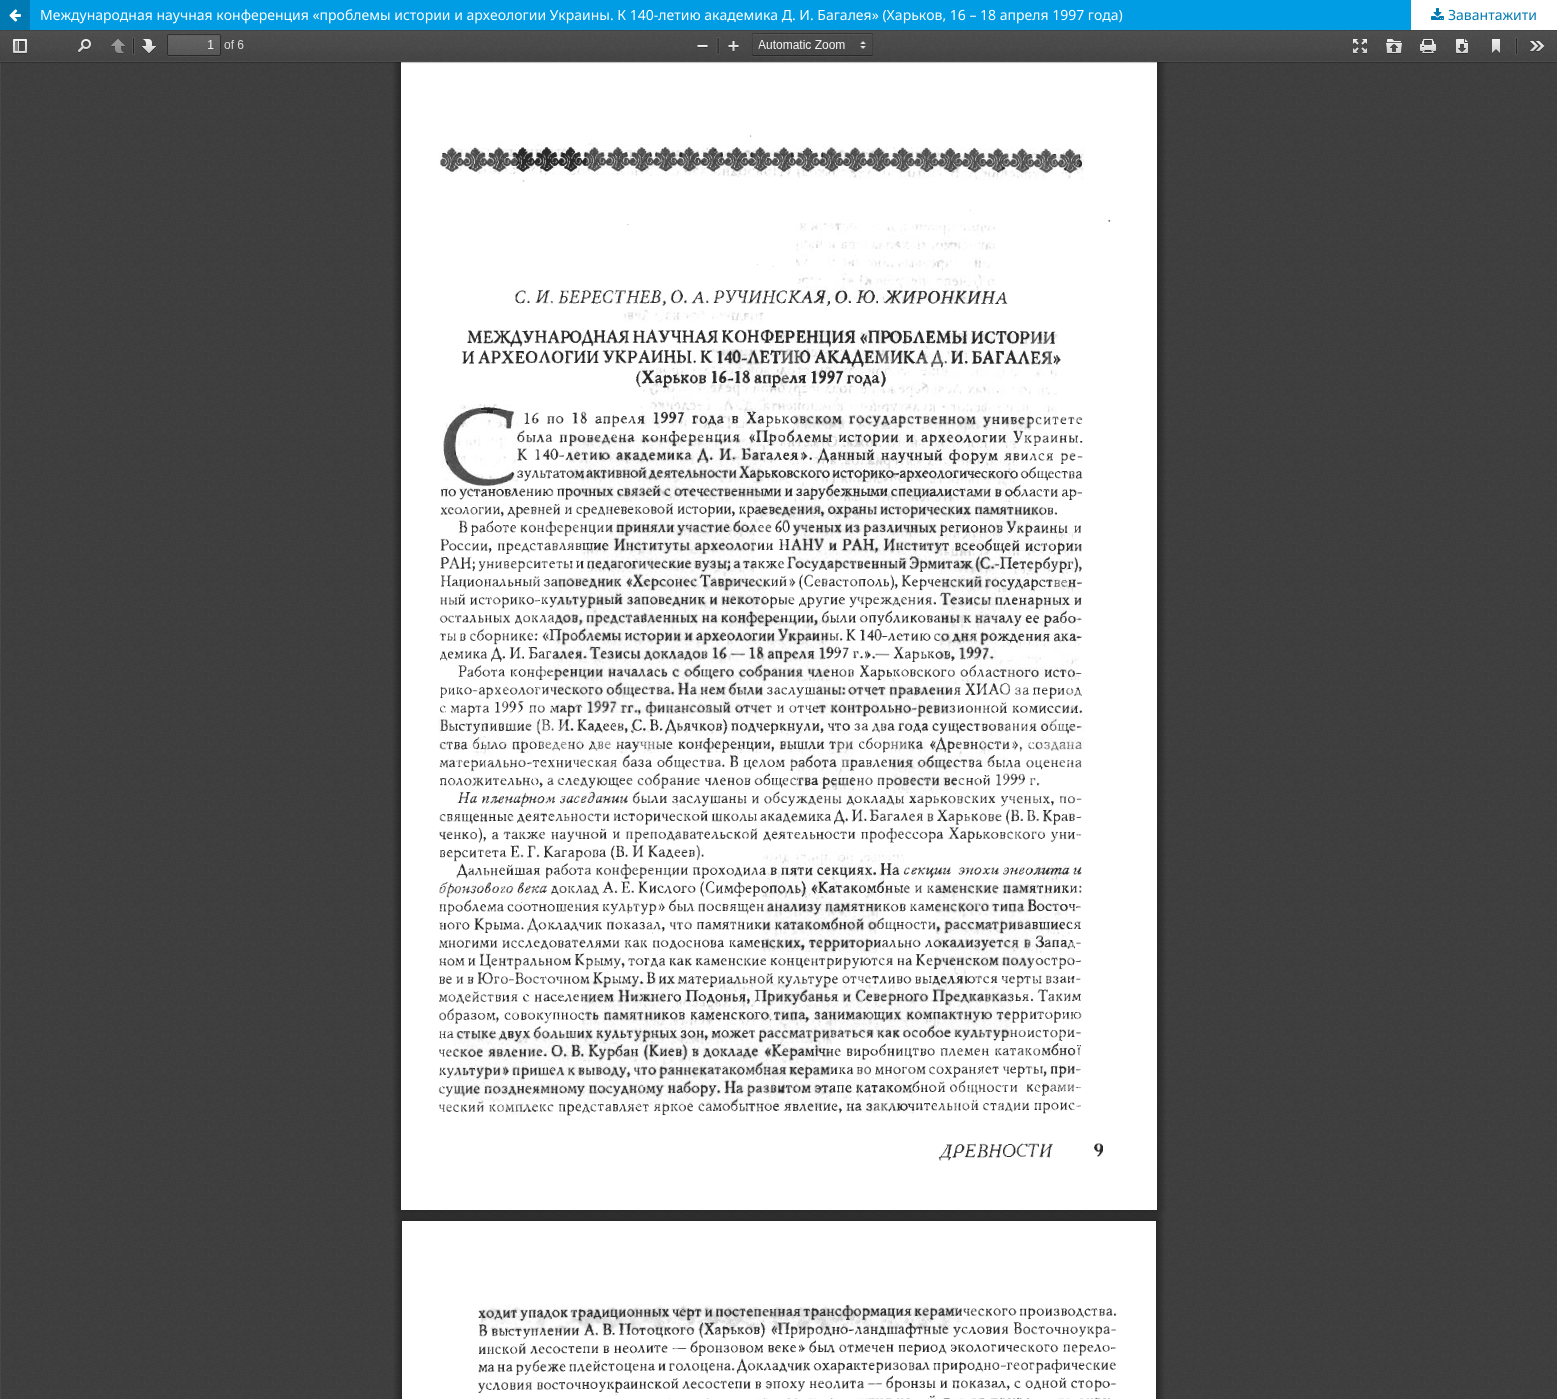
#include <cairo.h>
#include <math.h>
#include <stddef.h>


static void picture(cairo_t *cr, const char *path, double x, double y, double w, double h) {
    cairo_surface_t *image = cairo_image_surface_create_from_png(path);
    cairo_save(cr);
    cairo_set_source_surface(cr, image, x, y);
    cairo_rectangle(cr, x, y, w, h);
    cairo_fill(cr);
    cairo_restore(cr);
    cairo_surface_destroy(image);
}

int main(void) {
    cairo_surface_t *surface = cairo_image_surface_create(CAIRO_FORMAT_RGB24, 1557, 1399);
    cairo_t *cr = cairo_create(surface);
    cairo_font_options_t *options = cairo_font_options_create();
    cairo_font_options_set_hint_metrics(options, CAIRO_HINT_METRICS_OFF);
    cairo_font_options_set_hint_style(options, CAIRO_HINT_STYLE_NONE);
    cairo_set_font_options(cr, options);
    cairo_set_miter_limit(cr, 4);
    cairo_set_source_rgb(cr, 1, 1, 1);
    cairo_paint(cr);
    cairo_set_source_rgb(cr, 0, 0.616, 0.898);
    cairo_rectangle(cr, 30, 0, 1381, 30);
    cairo_fill(cr);
    cairo_set_source_rgb(cr, 0, 0.478, 0.698);
    cairo_rectangle(cr, 0, 0, 30, 30);
    cairo_fill(cr);
    picture(cr, "img1.png", 9, 9, 12, 13);
    cairo_select_font_face(cr, "Noto Sans", CAIRO_FONT_SLANT_NORMAL, CAIRO_FONT_WEIGHT_NORMAL);
    cairo_set_font_size(cr, 14);
    cairo_set_source_rgb(cr, 1, 1, 1);
    cairo_move_to(cr, 40, 20);
    cairo_show_text(cr, "Международная научная конференция «проблемы истории и археологии Украины. К 140-летию академика Д. И. Багалея» (Харьков, 16 – 18 апреля 1997 года)");
    picture(cr, "img2.png", 1431, 8, 13, 12);
    cairo_set_source_rgb(cr, 0, 0.478, 0.698);
    cairo_move_to(cr, 1448, 20);
    cairo_show_text(cr, "Завантажити");
    picture(cr, "img3.png", 0, 30, 1557, 1369);
    cairo_surface_write_to_png(surface, "page.png");
    cairo_font_options_destroy(options);
    cairo_destroy(cr);
    cairo_surface_destroy(surface);
    return 0;
}
